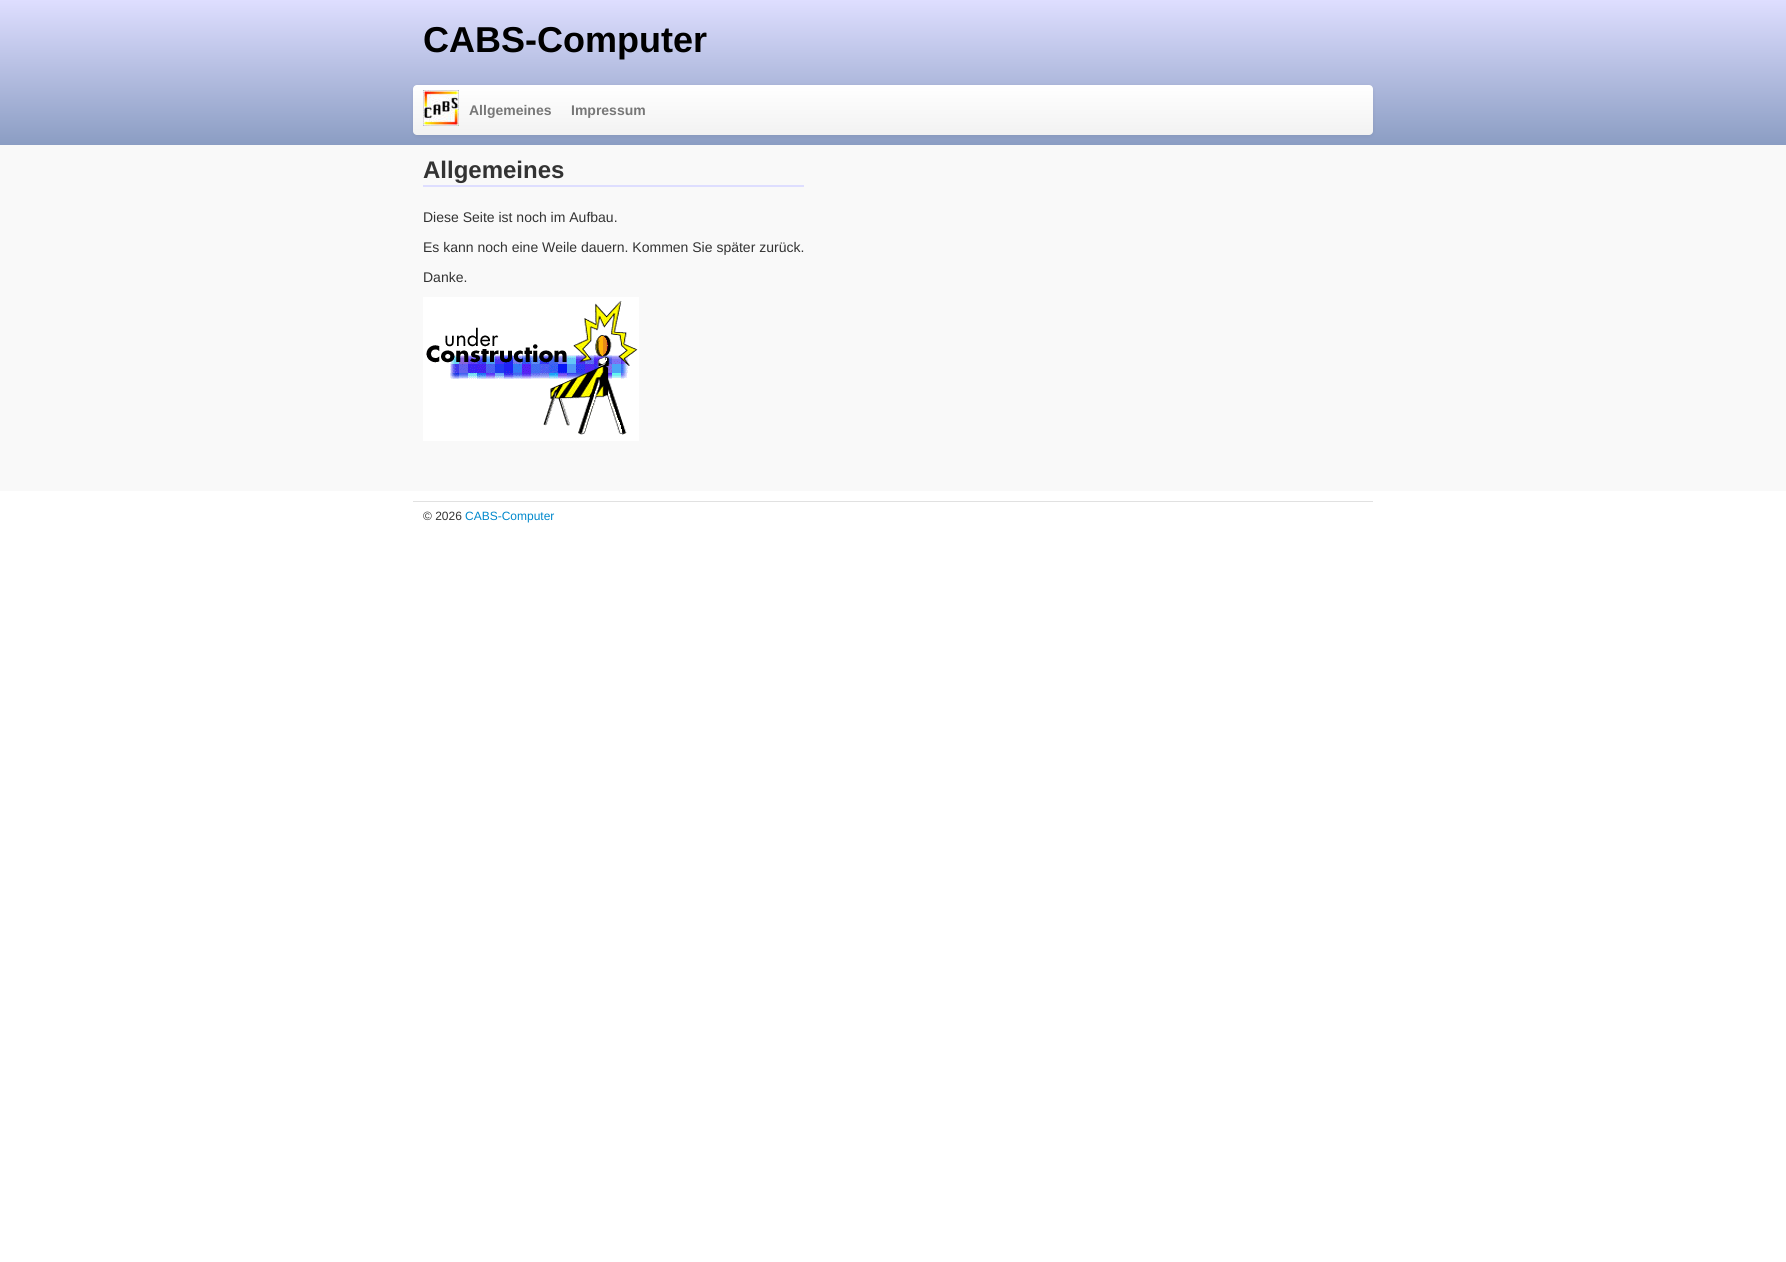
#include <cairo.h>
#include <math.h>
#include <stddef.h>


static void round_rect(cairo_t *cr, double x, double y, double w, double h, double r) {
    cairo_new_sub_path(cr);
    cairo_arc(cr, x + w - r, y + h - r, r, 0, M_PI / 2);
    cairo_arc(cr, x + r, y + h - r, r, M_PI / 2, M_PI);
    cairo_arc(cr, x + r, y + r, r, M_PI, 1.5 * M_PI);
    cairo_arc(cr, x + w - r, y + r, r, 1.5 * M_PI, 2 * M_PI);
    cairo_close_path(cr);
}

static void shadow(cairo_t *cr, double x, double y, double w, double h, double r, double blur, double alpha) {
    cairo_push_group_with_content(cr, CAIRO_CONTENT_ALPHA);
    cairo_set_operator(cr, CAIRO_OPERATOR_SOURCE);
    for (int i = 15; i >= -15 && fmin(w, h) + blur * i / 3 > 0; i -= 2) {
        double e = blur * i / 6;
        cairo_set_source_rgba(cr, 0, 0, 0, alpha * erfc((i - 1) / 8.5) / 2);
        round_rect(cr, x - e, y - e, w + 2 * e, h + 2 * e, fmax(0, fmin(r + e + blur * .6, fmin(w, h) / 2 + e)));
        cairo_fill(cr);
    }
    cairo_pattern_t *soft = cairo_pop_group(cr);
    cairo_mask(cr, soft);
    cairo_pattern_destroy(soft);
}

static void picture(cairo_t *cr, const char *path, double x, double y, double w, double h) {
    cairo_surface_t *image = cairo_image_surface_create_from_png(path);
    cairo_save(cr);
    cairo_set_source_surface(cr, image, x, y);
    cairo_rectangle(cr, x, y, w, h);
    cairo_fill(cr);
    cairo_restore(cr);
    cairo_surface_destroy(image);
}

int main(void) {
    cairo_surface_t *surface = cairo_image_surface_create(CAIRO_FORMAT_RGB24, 1786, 1262);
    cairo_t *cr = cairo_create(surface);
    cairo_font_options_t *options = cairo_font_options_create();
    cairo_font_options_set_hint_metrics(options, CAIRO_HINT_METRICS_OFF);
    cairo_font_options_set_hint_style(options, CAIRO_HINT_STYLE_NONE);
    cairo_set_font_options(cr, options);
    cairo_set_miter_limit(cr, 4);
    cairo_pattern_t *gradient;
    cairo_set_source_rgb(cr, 1, 1, 1);
    cairo_paint(cr);
    gradient = cairo_pattern_create_linear(893, 0, 893, 145);
    cairo_pattern_add_color_stop_rgba(gradient, 0, 0.871, 0.871, 1, 1);
    cairo_pattern_add_color_stop_rgba(gradient, 1, 0.545, 0.616, 0.765, 1);
    cairo_set_source(cr, gradient);
    cairo_pattern_destroy(gradient);
    cairo_rectangle(cr, 0, 0, 1786, 145);
    cairo_fill(cr);
    cairo_select_font_face(cr, "Liberation Sans", CAIRO_FONT_SLANT_NORMAL, CAIRO_FONT_WEIGHT_BOLD);
    cairo_set_font_size(cr, 36);
    cairo_set_source_rgb(cr, 0, 0, 0);
    cairo_move_to(cr, 423, 52);
    cairo_show_text(cr, "CABS-Computer");
    cairo_set_source_rgb(cr, 0, 0, 0);
    shadow(cr, 413, 86, 960, 50, 4, 2, 0.07);
    gradient = cairo_pattern_create_linear(893, 85, 893, 135);
    cairo_pattern_add_color_stop_rgba(gradient, 0, 1, 1, 1, 1);
    cairo_pattern_add_color_stop_rgba(gradient, 1, 0.949, 0.949, 0.949, 1);
    cairo_set_source(cr, gradient);
    cairo_pattern_destroy(gradient);
    round_rect(cr, 413, 85, 960, 50, 4);
    cairo_fill(cr);
    picture(cr, "img1.png", 423, 90, 36, 36);
    cairo_set_font_size(cr, 14);
    cairo_set_source_rgb(cr, 0.467, 0.467, 0.467);
    cairo_move_to(cr, 469, 115);
    cairo_show_text(cr, "Allgemeines");
    cairo_move_to(cr, 571, 115);
    cairo_show_text(cr, "Impressum");
    cairo_set_source_rgb(cr, 0.976, 0.976, 0.976);
    cairo_rectangle(cr, 0, 145, 1786, 346);
    cairo_fill(cr);
    cairo_set_source_rgb(cr, 0.871, 0.871, 1);
    cairo_rectangle(cr, 423, 185, 381, 2);
    cairo_fill(cr);
    cairo_set_font_size(cr, 24);
    cairo_set_source_rgb(cr, 0.2, 0.2, 0.2);
    cairo_move_to(cr, 423, 178);
    cairo_show_text(cr, "Allgemeines");
    cairo_select_font_face(cr, "Liberation Sans", CAIRO_FONT_SLANT_NORMAL, CAIRO_FONT_WEIGHT_NORMAL);
    cairo_set_font_size(cr, 14);
    cairo_move_to(cr, 423, 222);
    cairo_show_text(cr, "Diese Seite ist noch im Aufbau.");
    cairo_move_to(cr, 423, 252);
    cairo_show_text(cr, "Es kann noch eine Weile dauern. Kommen Sie später zurück.");
    cairo_move_to(cr, 423, 282);
    cairo_show_text(cr, "Danke.");
    picture(cr, "img2.png", 423, 297, 216, 144);
    cairo_set_source_rgb(cr, 0.882, 0.882, 0.882);
    cairo_rectangle(cr, 413, 501, 960, 1);
    cairo_fill(cr);
    cairo_set_font_size(cr, 12);
    cairo_set_source_rgb(cr, 0.2, 0.2, 0.2);
    cairo_move_to(cr, 423, 520);
    cairo_show_text(cr, "© 2026");
    cairo_set_source_rgb(cr, 0, 0.533, 0.8);
    cairo_move_to(cr, 465, 520);
    cairo_show_text(cr, "CABS-Computer");
    cairo_surface_write_to_png(surface, "page.png");
    cairo_font_options_destroy(options);
    cairo_destroy(cr);
    cairo_surface_destroy(surface);
    return 0;
}
